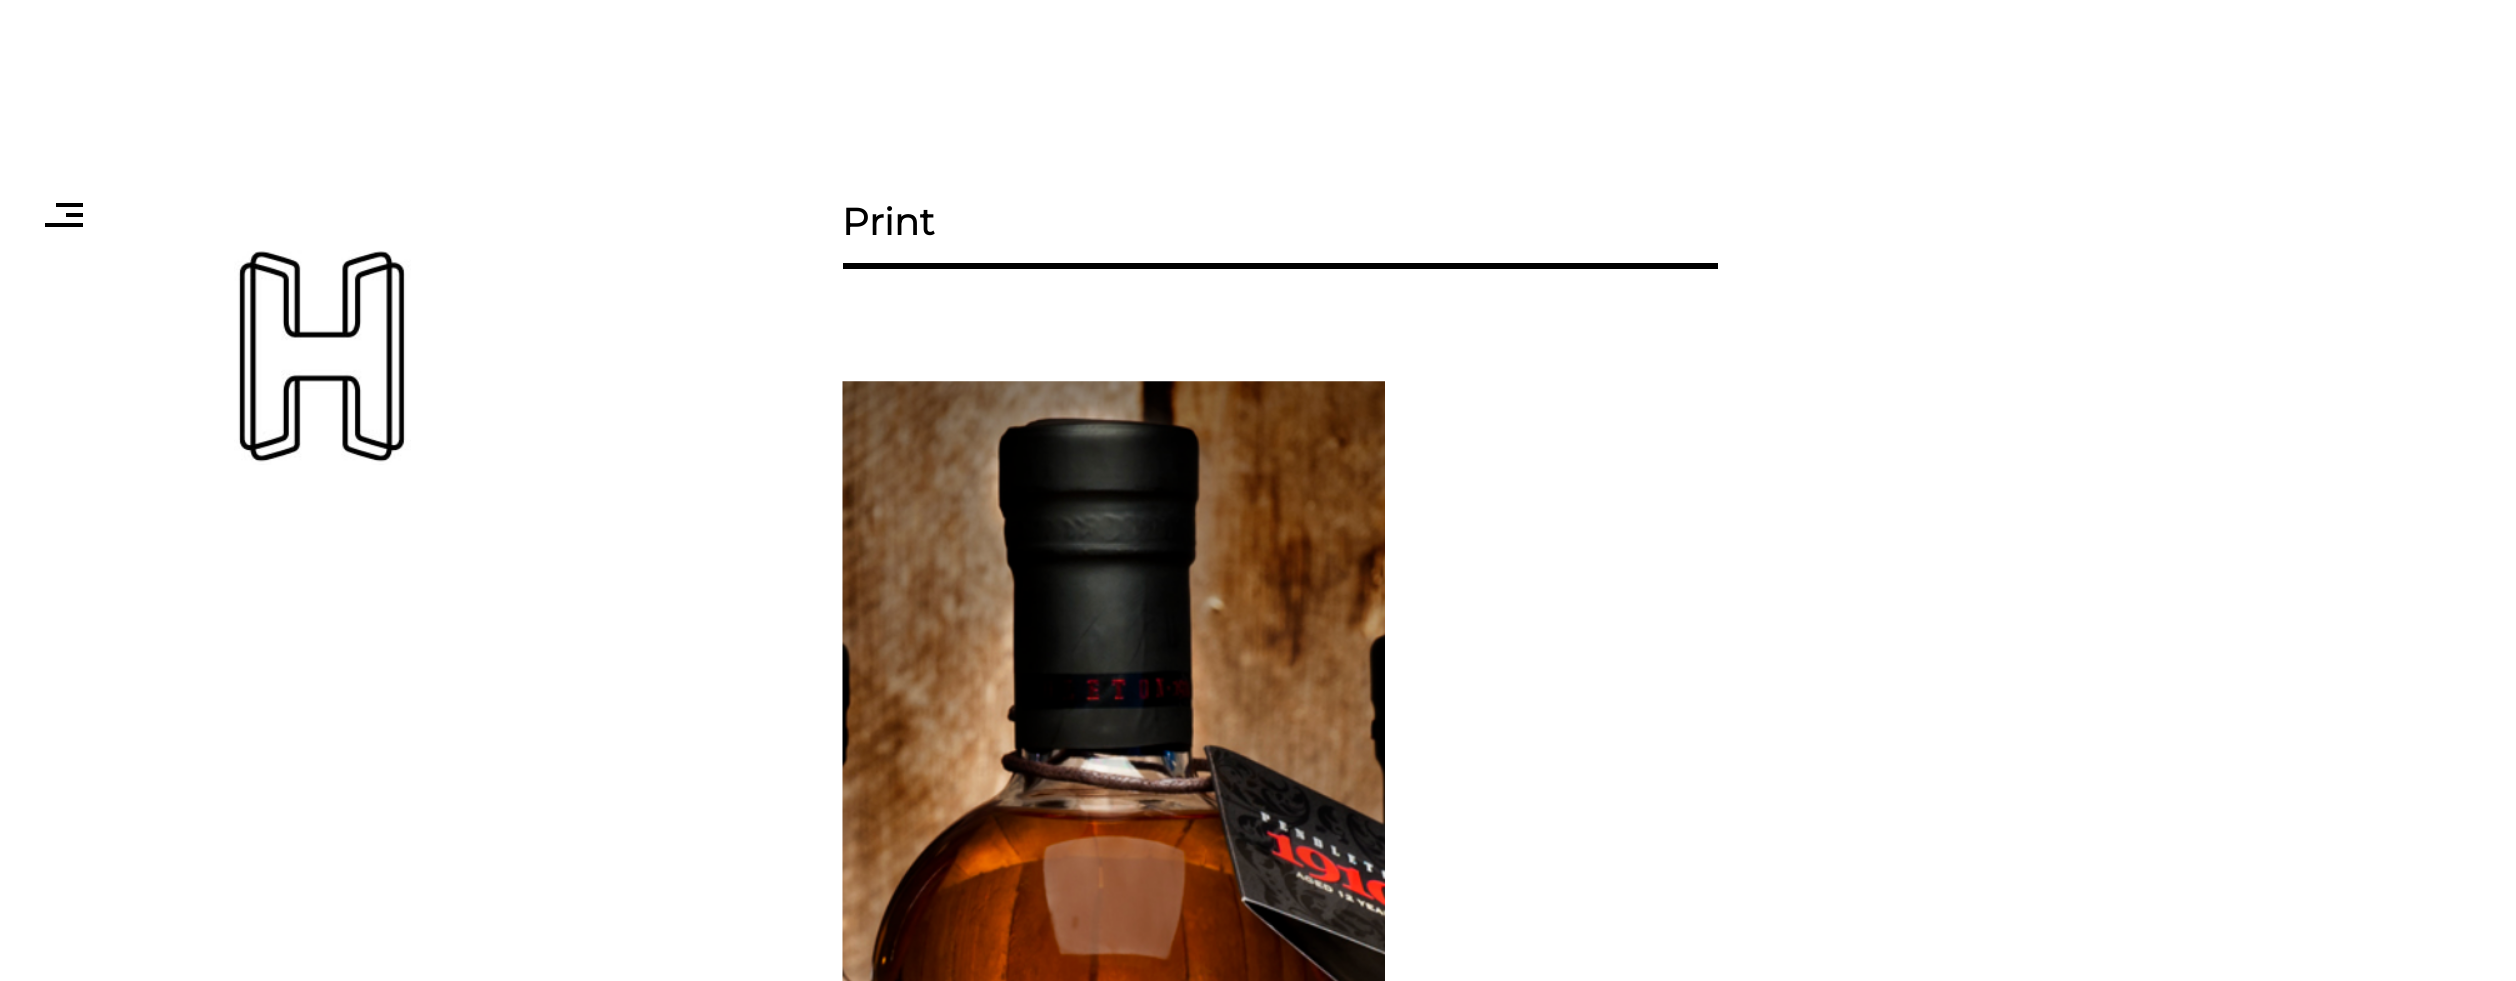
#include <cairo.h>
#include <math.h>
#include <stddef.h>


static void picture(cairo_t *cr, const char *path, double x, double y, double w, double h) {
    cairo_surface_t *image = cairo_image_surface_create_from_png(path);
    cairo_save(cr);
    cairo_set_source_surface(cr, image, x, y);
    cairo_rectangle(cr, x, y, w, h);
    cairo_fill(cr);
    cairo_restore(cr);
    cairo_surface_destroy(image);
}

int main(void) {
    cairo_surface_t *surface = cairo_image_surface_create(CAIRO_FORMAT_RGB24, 2516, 981);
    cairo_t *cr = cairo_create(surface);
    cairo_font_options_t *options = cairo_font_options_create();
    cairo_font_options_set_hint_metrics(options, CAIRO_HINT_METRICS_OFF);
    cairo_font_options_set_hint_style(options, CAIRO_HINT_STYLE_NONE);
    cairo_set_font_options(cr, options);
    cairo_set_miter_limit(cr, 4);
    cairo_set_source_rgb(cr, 1, 1, 1);
    cairo_paint(cr);
    cairo_set_source_rgb(cr, 0, 0, 0);
    cairo_rectangle(cr, 56, 203, 27, 4);
    cairo_fill(cr);
    cairo_rectangle(cr, 66, 213, 17, 4);
    cairo_fill(cr);
    cairo_rectangle(cr, 45, 223, 38, 4);
    cairo_fill(cr);
    cairo_rectangle(cr, 843, 263, 875, 6);
    cairo_fill(cr);
    cairo_select_font_face(cr, "Montserrat", CAIRO_FONT_SLANT_NORMAL, CAIRO_FONT_WEIGHT_BOLD);
    cairo_set_font_size(cr, 37.5);
    cairo_move_to(cr, 842, 235);
    cairo_show_text(cr, "Print");
    picture(cr, "img1.png", 842, 381, 543, 600);
    picture(cr, "img2.png", 234, 250, 177, 215);
    cairo_surface_write_to_png(surface, "page.png");
    cairo_font_options_destroy(options);
    cairo_destroy(cr);
    cairo_surface_destroy(surface);
    return 0;
}
